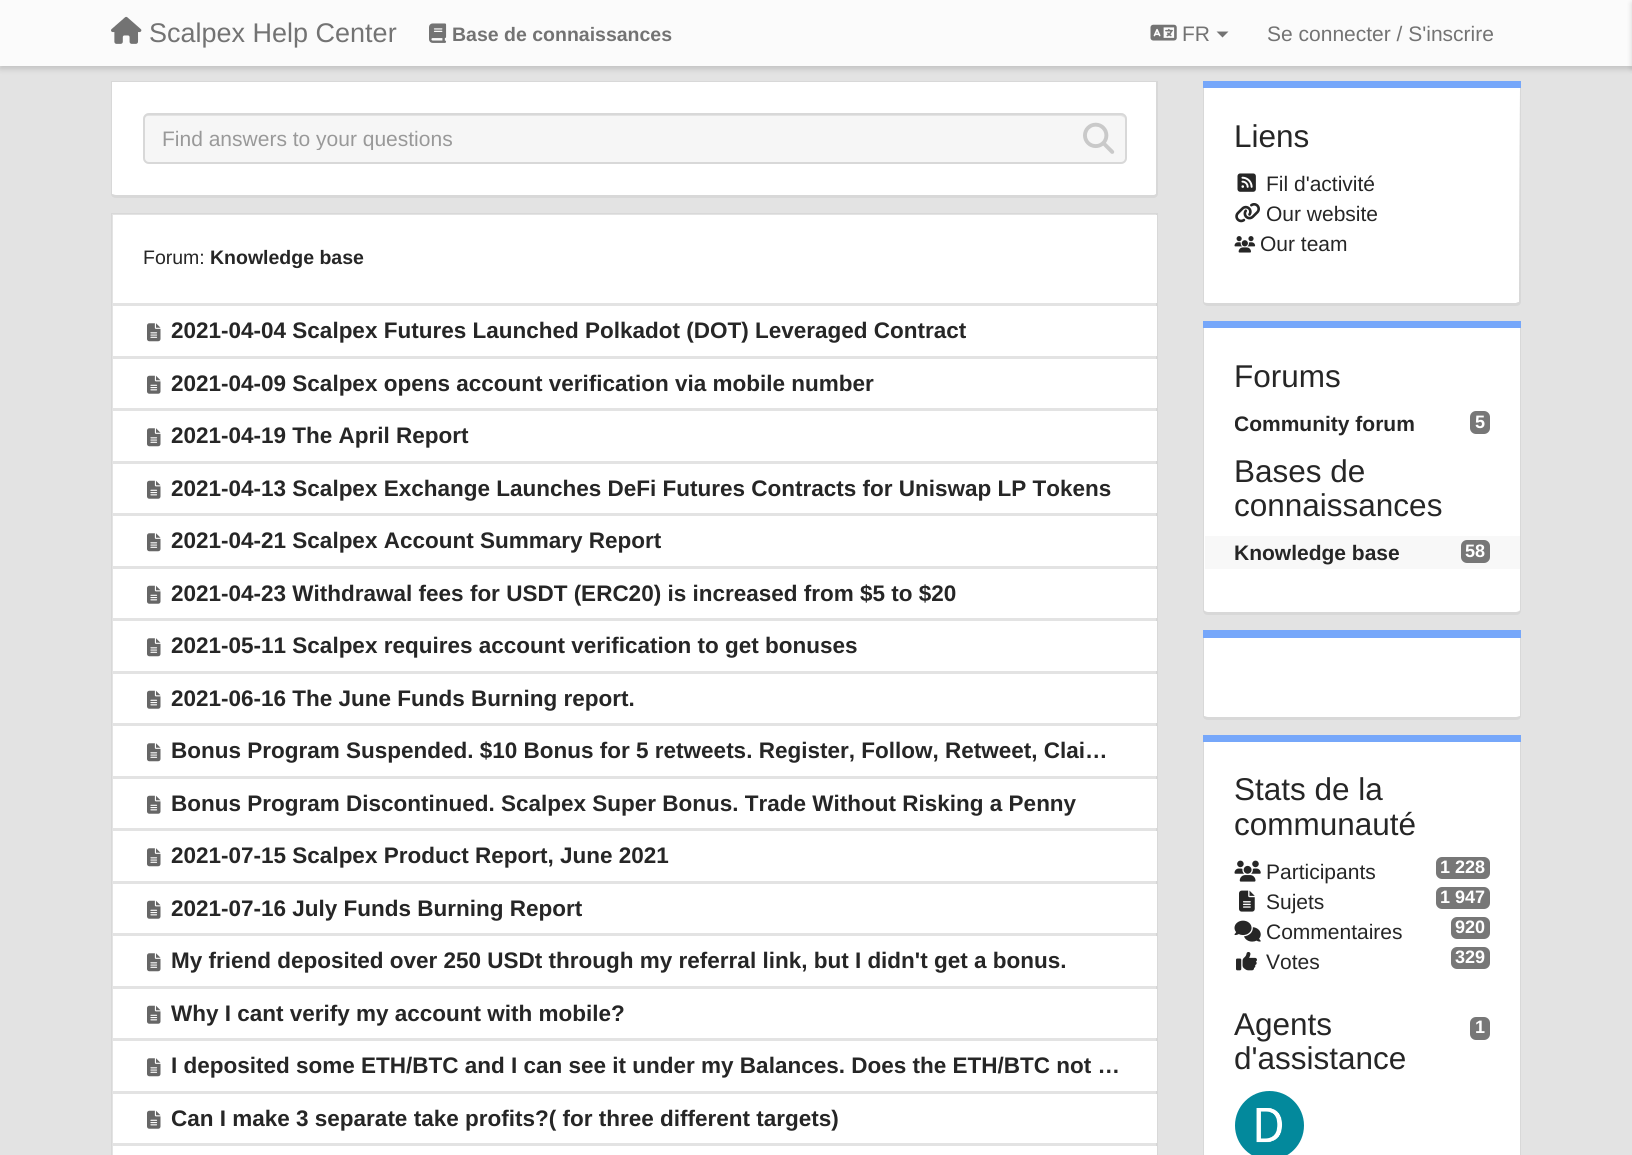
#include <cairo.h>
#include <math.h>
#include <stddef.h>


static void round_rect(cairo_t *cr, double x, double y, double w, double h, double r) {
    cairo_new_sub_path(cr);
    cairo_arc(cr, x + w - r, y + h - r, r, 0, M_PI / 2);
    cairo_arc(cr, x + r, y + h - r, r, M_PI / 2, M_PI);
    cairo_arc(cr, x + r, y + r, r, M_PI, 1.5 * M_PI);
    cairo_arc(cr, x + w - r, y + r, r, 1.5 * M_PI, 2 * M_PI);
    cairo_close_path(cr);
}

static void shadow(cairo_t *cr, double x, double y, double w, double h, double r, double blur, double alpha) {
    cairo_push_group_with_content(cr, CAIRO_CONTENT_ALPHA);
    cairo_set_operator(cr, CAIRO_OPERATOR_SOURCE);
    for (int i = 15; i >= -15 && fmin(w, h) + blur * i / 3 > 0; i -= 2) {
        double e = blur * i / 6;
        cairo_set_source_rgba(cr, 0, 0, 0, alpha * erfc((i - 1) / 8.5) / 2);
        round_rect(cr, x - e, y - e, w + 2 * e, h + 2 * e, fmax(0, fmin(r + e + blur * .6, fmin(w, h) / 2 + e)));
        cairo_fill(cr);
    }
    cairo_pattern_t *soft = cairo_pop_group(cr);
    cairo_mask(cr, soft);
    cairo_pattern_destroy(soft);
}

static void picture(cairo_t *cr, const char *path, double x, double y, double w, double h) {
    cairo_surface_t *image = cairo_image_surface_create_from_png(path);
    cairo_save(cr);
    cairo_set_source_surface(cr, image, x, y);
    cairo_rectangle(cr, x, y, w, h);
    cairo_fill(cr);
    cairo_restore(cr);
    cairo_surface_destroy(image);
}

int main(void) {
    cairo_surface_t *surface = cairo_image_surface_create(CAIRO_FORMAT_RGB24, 1632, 1155);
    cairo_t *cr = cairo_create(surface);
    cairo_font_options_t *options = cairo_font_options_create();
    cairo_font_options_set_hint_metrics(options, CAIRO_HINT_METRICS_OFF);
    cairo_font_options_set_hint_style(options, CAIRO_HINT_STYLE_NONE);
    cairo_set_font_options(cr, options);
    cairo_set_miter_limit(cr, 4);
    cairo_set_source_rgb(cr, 0.89, 0.89, 0.89);
    cairo_paint(cr);
    cairo_set_source_rgb(cr, 0, 0, 0);
    shadow(cr, 0, 3, 1632, 66, 0, 3, 0.15);
    cairo_set_source_rgb(cr, 0.984, 0.984, 0.984);
    cairo_rectangle(cr, 0, 0, 1632, 66);
    cairo_fill(cr);
    picture(cr, "img1.png", 111, 16, 31, 28);
    cairo_select_font_face(cr, "Liberation Sans", CAIRO_FONT_SLANT_NORMAL, CAIRO_FONT_WEIGHT_NORMAL);
    cairo_set_font_size(cr, 27);
    cairo_set_source_rgb(cr, 0.451, 0.451, 0.451);
    cairo_move_to(cr, 149, 42);
    cairo_show_text(cr, "Scalpex Help Center");
    picture(cr, "img2.png", 429, 23, 18, 20);
    cairo_select_font_face(cr, "Liberation Sans", CAIRO_FONT_SLANT_NORMAL, CAIRO_FONT_WEIGHT_BOLD);
    cairo_set_font_size(cr, 19.5);
    cairo_move_to(cr, 452, 41);
    cairo_show_text(cr, "Base de connaissances");
    picture(cr, "img3.png", 1150, 24, 27, 17);
    cairo_select_font_face(cr, "Liberation Sans", CAIRO_FONT_SLANT_NORMAL, CAIRO_FONT_WEIGHT_NORMAL);
    cairo_set_font_size(cr, 21);
    cairo_move_to(cr, 1182, 41);
    cairo_show_text(cr, "FR");
    cairo_new_path(cr);
    cairo_move_to(cr, 1216.5, 31.5);
    cairo_line_to(cr, 1228.5, 31.5);
    cairo_line_to(cr, 1222.5, 37.5);
    cairo_close_path(cr);
    cairo_fill(cr);
    cairo_move_to(cr, 1267, 41);
    cairo_show_text(cr, "Se connecter / S'inscrire");
    cairo_set_source_rgb(cr, 0, 0, 0);
    shadow(cr, 1632, 3, 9, 66, 0, 3, 0.15);
    cairo_set_source_rgb(cr, 0.847, 0.847, 0.847);
    cairo_rectangle(cr, 111, 81, 1047, 1);
    cairo_fill(cr);
    cairo_set_source_rgb(cr, 1, 1, 1);
    cairo_new_path(cr);
    cairo_move_to(cr, 112, 82);
    cairo_line_to(cr, 1156, 82);
    cairo_line_to(cr, 1156, 194);
    cairo_curve_to(cr, 1156, 194, 1155, 195, 1154, 195);
    cairo_line_to(cr, 116, 195);
    cairo_curve_to(cr, 114, 195, 112, 194, 112, 194);
    cairo_close_path(cr);
    cairo_fill(cr);
    cairo_set_source_rgb(cr, 0.847, 0.847, 0.847);
    cairo_set_fill_rule(cr, CAIRO_FILL_RULE_EVEN_ODD);
    cairo_new_path(cr);
    cairo_move_to(cr, 111, 82);
    cairo_line_to(cr, 1158, 82);
    cairo_line_to(cr, 1158, 194);
    cairo_curve_to(cr, 1158, 196, 1156, 198, 1154, 198);
    cairo_line_to(cr, 116, 198);
    cairo_curve_to(cr, 113, 198, 111, 196, 111, 194);
    cairo_close_path(cr);
    cairo_move_to(cr, 112, 82);
    cairo_line_to(cr, 1156, 82);
    cairo_line_to(cr, 1156, 194);
    cairo_curve_to(cr, 1156, 194, 1155, 195, 1154, 195);
    cairo_line_to(cr, 116, 195);
    cairo_curve_to(cr, 114, 195, 112, 194, 112, 194);
    cairo_close_path(cr);
    cairo_fill(cr);
    cairo_set_source_rgb(cr, 0.961, 0.961, 0.961);
    round_rect(cr, 143, 113, 984, 51, 6);
    cairo_fill(cr);
    cairo_set_source_rgb(cr, 0.89, 0.89, 0.89);
    cairo_set_fill_rule(cr, CAIRO_FILL_RULE_WINDING);
    cairo_new_path(cr);
    cairo_move_to(cr, 148, 116);
    cairo_line_to(cr, 1120, 116);
    cairo_curve_to(cr, 1123, 116, 1125, 118, 1125, 120);
    cairo_curve_to(cr, 1125, 117, 1123, 114, 1120, 114);
    cairo_line_to(cr, 149, 114);
    cairo_curve_to(cr, 146, 114, 144, 117, 144, 120);
    cairo_curve_to(cr, 144, 118, 146, 116, 148, 116);
    cairo_close_path(cr);
    cairo_fill(cr);
    round_rect(cr, 144, 114, 982, 49, 5);
    cairo_set_source_rgb(cr, 0.847, 0.847, 0.847);
    cairo_stroke(cr);
    cairo_save(cr);
    cairo_rectangle(cr, 162, 126, 918, 24);
    cairo_clip(cr);
    cairo_set_source_rgb(cr, 0.6, 0.6, 0.6);
    cairo_move_to(cr, 162, 146);
    cairo_show_text(cr, "Find answers to your questions");
    cairo_restore(cr);
    picture(cr, "img4.png", 1083, 122, 32, 32);
    cairo_rectangle(cr, 111, 213, 1047, 1);
    cairo_fill(cr);
    cairo_set_fill_rule(cr, CAIRO_FILL_RULE_EVEN_ODD);
    cairo_new_path(cr);
    cairo_move_to(cr, 111, 214);
    cairo_line_to(cr, 1158, 214);
    cairo_line_to(cr, 1158, 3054);
    cairo_curve_to(cr, 1158, 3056, 1156, 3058, 1154, 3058);
    cairo_line_to(cr, 116, 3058);
    cairo_curve_to(cr, 113, 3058, 111, 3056, 111, 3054);
    cairo_close_path(cr);
    cairo_move_to(cr, 112, 214);
    cairo_line_to(cr, 1156, 214);
    cairo_line_to(cr, 1156, 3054);
    cairo_curve_to(cr, 1156, 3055, 1155, 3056, 1154, 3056);
    cairo_line_to(cr, 116, 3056);
    cairo_curve_to(cr, 114, 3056, 112, 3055, 112, 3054);
    cairo_close_path(cr);
    cairo_fill(cr);
    cairo_set_source_rgb(cr, 1, 1, 1);
    cairo_rectangle(cr, 113, 215, 1044, 88);
    cairo_fill(cr);
    cairo_set_font_size(cr, 19.5);
    cairo_set_source_rgb(cr, 0.149, 0.149, 0.149);
    cairo_move_to(cr, 143, 264);
    cairo_show_text(cr, "Forum:");
    cairo_select_font_face(cr, "Liberation Sans", CAIRO_FONT_SLANT_NORMAL, CAIRO_FONT_WEIGHT_BOLD);
    cairo_move_to(cr, 210, 264);
    cairo_show_text(cr, "Knowledge base");
    cairo_set_source_rgb(cr, 1, 1, 1);
    cairo_rectangle(cr, 113, 306, 1044, 50);
    cairo_fill(cr);
    picture(cr, "img5.png", 147, 323, 14, 19);
    cairo_set_font_size(cr, 22.5);
    cairo_set_source_rgb(cr, 0.149, 0.149, 0.149);
    cairo_move_to(cr, 171, 338);
    cairo_show_text(cr, "2021-04-04 Scalpex Futures Launched Polkadot (DOT) Leveraged Contract");
    cairo_set_source_rgb(cr, 1, 1, 1);
    cairo_rectangle(cr, 113, 359, 1044, 49);
    cairo_fill(cr);
    picture(cr, "img6.png", 147, 375, 14, 19);
    cairo_set_source_rgb(cr, 0.149, 0.149, 0.149);
    cairo_move_to(cr, 171, 391);
    cairo_show_text(cr, "2021-04-09 Scalpex opens account verification via mobile number");
    cairo_set_source_rgb(cr, 1, 1, 1);
    cairo_rectangle(cr, 113, 411, 1044, 50);
    cairo_fill(cr);
    picture(cr, "img5.png", 147, 428, 14, 19);
    cairo_set_source_rgb(cr, 0.149, 0.149, 0.149);
    cairo_move_to(cr, 171, 443);
    cairo_show_text(cr, "2021-04-19 The April Report");
    cairo_set_source_rgb(cr, 1, 1, 1);
    cairo_rectangle(cr, 113, 464, 1044, 49);
    cairo_fill(cr);
    picture(cr, "img6.png", 147, 480, 14, 19);
    cairo_set_source_rgb(cr, 0.149, 0.149, 0.149);
    cairo_move_to(cr, 171, 496);
    cairo_show_text(cr, "2021-04-13 Scalpex Exchange Launches DeFi Futures Contracts for Uniswap LP Tokens");
    cairo_set_source_rgb(cr, 1, 1, 1);
    cairo_rectangle(cr, 113, 516, 1044, 50);
    cairo_fill(cr);
    picture(cr, "img5.png", 147, 533, 14, 19);
    cairo_set_source_rgb(cr, 0.149, 0.149, 0.149);
    cairo_move_to(cr, 171, 548);
    cairo_show_text(cr, "2021-04-21 Scalpex Account Summary Report");
    cairo_set_source_rgb(cr, 1, 1, 1);
    cairo_rectangle(cr, 113, 569, 1044, 49);
    cairo_fill(cr);
    picture(cr, "img6.png", 147, 585, 14, 19);
    cairo_set_source_rgb(cr, 0.149, 0.149, 0.149);
    cairo_move_to(cr, 171, 601);
    cairo_show_text(cr, "2021-04-23 Withdrawal fees for USDT (ERC20) is increased from $5 to $20");
    cairo_set_source_rgb(cr, 1, 1, 1);
    cairo_rectangle(cr, 113, 621, 1044, 50);
    cairo_fill(cr);
    picture(cr, "img5.png", 147, 638, 14, 19);
    cairo_set_source_rgb(cr, 0.149, 0.149, 0.149);
    cairo_move_to(cr, 171, 653);
    cairo_show_text(cr, "2021-05-11 Scalpex requires account verification to get bonuses");
    cairo_set_source_rgb(cr, 1, 1, 1);
    cairo_rectangle(cr, 113, 674, 1044, 49);
    cairo_fill(cr);
    picture(cr, "img6.png", 147, 690, 14, 19);
    cairo_set_source_rgb(cr, 0.149, 0.149, 0.149);
    cairo_move_to(cr, 171, 706);
    cairo_show_text(cr, "2021-06-16 The June Funds Burning report.");
    cairo_set_source_rgb(cr, 1, 1, 1);
    cairo_rectangle(cr, 113, 726, 1044, 50);
    cairo_fill(cr);
    picture(cr, "img5.png", 147, 743, 14, 19);
    cairo_set_source_rgb(cr, 0.149, 0.149, 0.149);
    cairo_move_to(cr, 171, 758);
    cairo_show_text(cr, "Bonus Program Suspended. $10 Bonus for 5 retweets. Register, Follow, Retweet, Clai…");
    cairo_set_source_rgb(cr, 1, 1, 1);
    cairo_rectangle(cr, 113, 779, 1044, 49);
    cairo_fill(cr);
    picture(cr, "img6.png", 147, 795, 14, 19);
    cairo_set_source_rgb(cr, 0.149, 0.149, 0.149);
    cairo_move_to(cr, 171, 811);
    cairo_show_text(cr, "Bonus Program Discontinued. Scalpex Super Bonus. Trade Without Risking a Penny");
    cairo_set_source_rgb(cr, 1, 1, 1);
    cairo_rectangle(cr, 113, 831, 1044, 50);
    cairo_fill(cr);
    picture(cr, "img5.png", 147, 848, 14, 19);
    cairo_set_source_rgb(cr, 0.149, 0.149, 0.149);
    cairo_move_to(cr, 171, 863);
    cairo_show_text(cr, "2021-07-15 Scalpex Product Report, June 2021");
    cairo_set_source_rgb(cr, 1, 1, 1);
    cairo_rectangle(cr, 113, 884, 1044, 49);
    cairo_fill(cr);
    picture(cr, "img6.png", 147, 900, 14, 19);
    cairo_set_source_rgb(cr, 0.149, 0.149, 0.149);
    cairo_move_to(cr, 171, 916);
    cairo_show_text(cr, "2021-07-16 July Funds Burning Report");
    cairo_set_source_rgb(cr, 1, 1, 1);
    cairo_rectangle(cr, 113, 936, 1044, 50);
    cairo_fill(cr);
    picture(cr, "img5.png", 147, 953, 14, 19);
    cairo_set_source_rgb(cr, 0.149, 0.149, 0.149);
    cairo_move_to(cr, 171, 968);
    cairo_show_text(cr, "My friend deposited over 250 USDt through my referral link, but I didn't get a bonus.");
    cairo_set_source_rgb(cr, 1, 1, 1);
    cairo_rectangle(cr, 113, 989, 1044, 49);
    cairo_fill(cr);
    picture(cr, "img6.png", 147, 1005, 14, 19);
    cairo_set_source_rgb(cr, 0.149, 0.149, 0.149);
    cairo_move_to(cr, 171, 1021);
    cairo_show_text(cr, "Why I cant verify my account with mobile?");
    cairo_set_source_rgb(cr, 1, 1, 1);
    cairo_rectangle(cr, 113, 1041, 1044, 50);
    cairo_fill(cr);
    picture(cr, "img5.png", 147, 1058, 14, 19);
    cairo_set_source_rgb(cr, 0.149, 0.149, 0.149);
    cairo_move_to(cr, 171, 1073);
    cairo_show_text(cr, "I deposited some ETH/BTC and I can see it under my Balances. Does the ETH/BTC not …");
    cairo_set_source_rgb(cr, 1, 1, 1);
    cairo_rectangle(cr, 113, 1094, 1044, 49);
    cairo_fill(cr);
    picture(cr, "img6.png", 147, 1110, 14, 19);
    cairo_set_source_rgb(cr, 0.149, 0.149, 0.149);
    cairo_move_to(cr, 171, 1126);
    cairo_show_text(cr, "Can I make 3 separate take profits?( for three different targets)");
    cairo_set_source_rgb(cr, 1, 1, 1);
    cairo_rectangle(cr, 113, 1146, 1044, 9);
    cairo_fill(cr);
    cairo_set_source_rgb(cr, 0.463, 0.655, 0.98);
    cairo_rectangle(cr, 1203, 81, 318, 7);
    cairo_fill(cr);
    cairo_set_source_rgb(cr, 1, 1, 1);
    cairo_set_fill_rule(cr, CAIRO_FILL_RULE_WINDING);
    cairo_new_path(cr);
    cairo_move_to(cr, 1204, 88);
    cairo_line_to(cr, 1520, 88);
    cairo_line_to(cr, 1519, 302);
    cairo_line_to(cr, 1516, 303);
    cairo_line_to(cr, 1208, 303);
    cairo_curve_to(cr, 1207, 303, 1204, 303, 1204, 302);
    cairo_close_path(cr);
    cairo_fill(cr);
    cairo_set_source_rgb(cr, 0.847, 0.847, 0.847);
    cairo_set_fill_rule(cr, CAIRO_FILL_RULE_EVEN_ODD);
    cairo_new_path(cr);
    cairo_move_to(cr, 1203, 88);
    cairo_line_to(cr, 1521, 88);
    cairo_line_to(cr, 1521, 302);
    cairo_curve_to(cr, 1521, 304, 1519, 306, 1516, 306);
    cairo_line_to(cr, 1208, 306);
    cairo_curve_to(cr, 1205, 306, 1203, 304, 1203, 302);
    cairo_close_path(cr);
    cairo_move_to(cr, 1204, 88);
    cairo_line_to(cr, 1520, 88);
    cairo_line_to(cr, 1519, 302);
    cairo_line_to(cr, 1516, 303);
    cairo_line_to(cr, 1208, 303);
    cairo_curve_to(cr, 1207, 303, 1204, 303, 1204, 302);
    cairo_close_path(cr);
    cairo_fill(cr);
    cairo_select_font_face(cr, "Liberation Sans", CAIRO_FONT_SLANT_NORMAL, CAIRO_FONT_WEIGHT_NORMAL);
    cairo_set_font_size(cr, 31.5);
    cairo_set_source_rgb(cr, 0.149, 0.149, 0.149);
    cairo_move_to(cr, 1234, 147);
    cairo_show_text(cr, "Liens");
    picture(cr, "img7.png", 1237, 173, 19, 19);
    cairo_set_font_size(cr, 21);
    cairo_move_to(cr, 1266, 191);
    cairo_show_text(cr, "Fil d'activité");
    picture(cr, "img8.png", 1235, 203, 25, 20);
    cairo_move_to(cr, 1266, 221);
    cairo_show_text(cr, "Our website");
    picture(cr, "img9.png", 1234, 236, 22, 17);
    cairo_move_to(cr, 1260, 251);
    cairo_show_text(cr, "Our team");
    cairo_set_source_rgb(cr, 0.463, 0.655, 0.98);
    cairo_rectangle(cr, 1203, 321, 318, 7);
    cairo_fill(cr);
    cairo_set_source_rgb(cr, 1, 1, 1);
    cairo_set_fill_rule(cr, CAIRO_FILL_RULE_WINDING);
    cairo_new_path(cr);
    cairo_move_to(cr, 1204, 328);
    cairo_line_to(cr, 1520, 328);
    cairo_line_to(cr, 1520, 610);
    cairo_curve_to(cr, 1520, 611, 1518, 612, 1516, 612);
    cairo_line_to(cr, 1208, 612);
    cairo_curve_to(cr, 1206, 612, 1204, 611, 1204, 610);
    cairo_close_path(cr);
    cairo_fill(cr);
    cairo_set_source_rgb(cr, 0.847, 0.847, 0.847);
    cairo_set_fill_rule(cr, CAIRO_FILL_RULE_EVEN_ODD);
    cairo_new_path(cr);
    cairo_move_to(cr, 1203, 328);
    cairo_line_to(cr, 1521, 328);
    cairo_line_to(cr, 1521, 610);
    cairo_curve_to(cr, 1521, 613, 1519, 615, 1516, 615);
    cairo_line_to(cr, 1208, 615);
    cairo_curve_to(cr, 1205, 615, 1203, 613, 1203, 610);
    cairo_close_path(cr);
    cairo_move_to(cr, 1204, 328);
    cairo_line_to(cr, 1520, 328);
    cairo_line_to(cr, 1520, 610);
    cairo_curve_to(cr, 1520, 611, 1518, 612, 1516, 612);
    cairo_line_to(cr, 1208, 612);
    cairo_curve_to(cr, 1206, 612, 1204, 611, 1204, 610);
    cairo_close_path(cr);
    cairo_fill(cr);
    cairo_set_font_size(cr, 31.5);
    cairo_set_source_rgb(cr, 0.149, 0.149, 0.149);
    cairo_move_to(cr, 1234, 387);
    cairo_show_text(cr, "Forums");
    cairo_save(cr);
    cairo_set_fill_rule(cr, CAIRO_FILL_RULE_WINDING);
    cairo_rectangle(cr, 1235, 408, 235, 30);
    cairo_clip(cr);
    cairo_select_font_face(cr, "Liberation Sans", CAIRO_FONT_SLANT_NORMAL, CAIRO_FONT_WEIGHT_BOLD);
    cairo_set_font_size(cr, 21);
    cairo_move_to(cr, 1234, 431);
    cairo_show_text(cr, "Community forum");
    cairo_restore(cr);
    cairo_set_source_rgb(cr, 0.467, 0.467, 0.467);
    round_rect(cr, 1470, 411, 20, 23, 6);
    cairo_fill(cr);
    cairo_select_font_face(cr, "Liberation Sans", CAIRO_FONT_SLANT_NORMAL, CAIRO_FONT_WEIGHT_BOLD);
    cairo_set_font_size(cr, 18);
    cairo_set_source_rgb(cr, 1, 1, 1);
    cairo_move_to(cr, 1475, 428);
    cairo_show_text(cr, "5");
    cairo_select_font_face(cr, "Liberation Sans", CAIRO_FONT_SLANT_NORMAL, CAIRO_FONT_WEIGHT_NORMAL);
    cairo_set_font_size(cr, 31.5);
    cairo_set_source_rgb(cr, 0.149, 0.149, 0.149);
    cairo_move_to(cr, 1234, 482);
    cairo_show_text(cr, "Bases de");
    cairo_move_to(cr, 1234, 516);
    cairo_show_text(cr, "connaissances");
    cairo_set_source_rgb(cr, 0.969, 0.969, 0.969);
    cairo_rectangle(cr, 1205, 536, 315, 33);
    cairo_fill(cr);
    cairo_select_font_face(cr, "Liberation Sans", CAIRO_FONT_SLANT_NORMAL, CAIRO_FONT_WEIGHT_BOLD);
    cairo_set_font_size(cr, 21);
    cairo_set_source_rgb(cr, 0.149, 0.149, 0.149);
    cairo_move_to(cr, 1234, 560);
    cairo_show_text(cr, "Knowledge base");
    cairo_set_source_rgb(cr, 0.467, 0.467, 0.467);
    round_rect(cr, 1461, 540, 29, 23, 6);
    cairo_fill(cr);
    cairo_set_font_size(cr, 18);
    cairo_set_source_rgb(cr, 1, 1, 1);
    cairo_move_to(cr, 1465, 557);
    cairo_show_text(cr, "58");
    cairo_set_source_rgb(cr, 0.463, 0.655, 0.98);
    cairo_rectangle(cr, 1203, 630, 318, 8);
    cairo_fill(cr);
    cairo_set_source_rgb(cr, 1, 1, 1);
    cairo_set_fill_rule(cr, CAIRO_FILL_RULE_WINDING);
    cairo_new_path(cr);
    cairo_move_to(cr, 1204, 638);
    cairo_line_to(cr, 1520, 638);
    cairo_line_to(cr, 1520, 716);
    cairo_curve_to(cr, 1520, 716, 1518, 717, 1516, 717);
    cairo_line_to(cr, 1208, 717);
    cairo_curve_to(cr, 1206, 717, 1204, 716, 1204, 716);
    cairo_close_path(cr);
    cairo_fill(cr);
    cairo_set_source_rgb(cr, 0.847, 0.847, 0.847);
    cairo_set_fill_rule(cr, CAIRO_FILL_RULE_EVEN_ODD);
    cairo_new_path(cr);
    cairo_move_to(cr, 1203, 638);
    cairo_line_to(cr, 1521, 638);
    cairo_line_to(cr, 1521, 716);
    cairo_curve_to(cr, 1521, 718, 1519, 720, 1516, 720);
    cairo_line_to(cr, 1208, 720);
    cairo_curve_to(cr, 1205, 720, 1203, 718, 1203, 716);
    cairo_close_path(cr);
    cairo_move_to(cr, 1204, 638);
    cairo_line_to(cr, 1520, 638);
    cairo_line_to(cr, 1520, 716);
    cairo_curve_to(cr, 1520, 716, 1518, 717, 1516, 717);
    cairo_line_to(cr, 1208, 717);
    cairo_curve_to(cr, 1206, 717, 1204, 716, 1204, 716);
    cairo_close_path(cr);
    cairo_fill(cr);
    cairo_set_source_rgb(cr, 0.463, 0.655, 0.98);
    cairo_rectangle(cr, 1203, 735, 318, 7);
    cairo_fill(cr);
    cairo_set_source_rgb(cr, 1, 1, 1);
    cairo_set_fill_rule(cr, CAIRO_FILL_RULE_WINDING);
    cairo_new_path(cr);
    cairo_move_to(cr, 1204, 742);
    cairo_line_to(cr, 1520, 742);
    cairo_line_to(cr, 1520, 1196);
    cairo_curve_to(cr, 1520, 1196, 1518, 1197, 1516, 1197);
    cairo_line_to(cr, 1208, 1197);
    cairo_curve_to(cr, 1206, 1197, 1204, 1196, 1204, 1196);
    cairo_close_path(cr);
    cairo_fill(cr);
    cairo_set_source_rgb(cr, 0.847, 0.847, 0.847);
    cairo_set_fill_rule(cr, CAIRO_FILL_RULE_EVEN_ODD);
    cairo_new_path(cr);
    cairo_move_to(cr, 1203, 742);
    cairo_line_to(cr, 1521, 742);
    cairo_line_to(cr, 1521, 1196);
    cairo_curve_to(cr, 1521, 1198, 1519, 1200, 1516, 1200);
    cairo_line_to(cr, 1208, 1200);
    cairo_curve_to(cr, 1205, 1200, 1203, 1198, 1203, 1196);
    cairo_close_path(cr);
    cairo_move_to(cr, 1204, 742);
    cairo_line_to(cr, 1520, 742);
    cairo_line_to(cr, 1520, 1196);
    cairo_curve_to(cr, 1520, 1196, 1518, 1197, 1516, 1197);
    cairo_line_to(cr, 1208, 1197);
    cairo_curve_to(cr, 1206, 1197, 1204, 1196, 1204, 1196);
    cairo_close_path(cr);
    cairo_fill(cr);
    cairo_select_font_face(cr, "Liberation Sans", CAIRO_FONT_SLANT_NORMAL, CAIRO_FONT_WEIGHT_NORMAL);
    cairo_set_font_size(cr, 31.5);
    cairo_set_source_rgb(cr, 0.149, 0.149, 0.149);
    cairo_move_to(cr, 1234, 800);
    cairo_show_text(cr, "Stats de la");
    cairo_move_to(cr, 1234, 835);
    cairo_show_text(cr, "communauté");
    picture(cr, "img10.png", 1234, 860, 27, 22);
    cairo_set_font_size(cr, 21);
    cairo_move_to(cr, 1266, 879);
    cairo_show_text(cr, "Participants");
    cairo_set_source_rgb(cr, 0.467, 0.467, 0.467);
    round_rect(cr, 1436, 857, 54, 22, 6);
    cairo_fill(cr);
    cairo_select_font_face(cr, "Liberation Sans", CAIRO_FONT_SLANT_NORMAL, CAIRO_FONT_WEIGHT_BOLD);
    cairo_set_font_size(cr, 18);
    cairo_set_source_rgb(cr, 1, 1, 1);
    cairo_move_to(cr, 1440, 873);
    cairo_show_text(cr, "1 228");
    picture(cr, "img11.png", 1239, 890, 16, 22);
    cairo_select_font_face(cr, "Liberation Sans", CAIRO_FONT_SLANT_NORMAL, CAIRO_FONT_WEIGHT_NORMAL);
    cairo_set_font_size(cr, 21);
    cairo_set_source_rgb(cr, 0.149, 0.149, 0.149);
    cairo_move_to(cr, 1266, 909);
    cairo_show_text(cr, "Sujets");
    cairo_set_source_rgb(cr, 0.467, 0.467, 0.467);
    round_rect(cr, 1436, 887, 54, 22, 6);
    cairo_fill(cr);
    cairo_select_font_face(cr, "Liberation Sans", CAIRO_FONT_SLANT_NORMAL, CAIRO_FONT_WEIGHT_BOLD);
    cairo_set_font_size(cr, 18);
    cairo_set_source_rgb(cr, 1, 1, 1);
    cairo_move_to(cr, 1440, 903);
    cairo_show_text(cr, "1 947");
    picture(cr, "img12.png", 1234, 920, 27, 22);
    cairo_select_font_face(cr, "Liberation Sans", CAIRO_FONT_SLANT_NORMAL, CAIRO_FONT_WEIGHT_NORMAL);
    cairo_set_font_size(cr, 21);
    cairo_set_source_rgb(cr, 0.149, 0.149, 0.149);
    cairo_move_to(cr, 1266, 939);
    cairo_show_text(cr, "Commentaires");
    cairo_set_source_rgb(cr, 0.467, 0.467, 0.467);
    round_rect(cr, 1451, 917, 39, 22, 6);
    cairo_fill(cr);
    cairo_select_font_face(cr, "Liberation Sans", CAIRO_FONT_SLANT_NORMAL, CAIRO_FONT_WEIGHT_BOLD);
    cairo_set_font_size(cr, 18);
    cairo_set_source_rgb(cr, 1, 1, 1);
    cairo_move_to(cr, 1455, 933);
    cairo_show_text(cr, "920");
    picture(cr, "img13.png", 1236, 952, 21, 19);
    cairo_select_font_face(cr, "Liberation Sans", CAIRO_FONT_SLANT_NORMAL, CAIRO_FONT_WEIGHT_NORMAL);
    cairo_set_font_size(cr, 21);
    cairo_set_source_rgb(cr, 0.149, 0.149, 0.149);
    cairo_move_to(cr, 1266, 969);
    cairo_show_text(cr, "Votes");
    cairo_set_source_rgb(cr, 0.467, 0.467, 0.467);
    round_rect(cr, 1451, 947, 39, 22, 6);
    cairo_fill(cr);
    cairo_select_font_face(cr, "Liberation Sans", CAIRO_FONT_SLANT_NORMAL, CAIRO_FONT_WEIGHT_BOLD);
    cairo_set_font_size(cr, 18);
    cairo_set_source_rgb(cr, 1, 1, 1);
    cairo_move_to(cr, 1455, 963);
    cairo_show_text(cr, "329");
    cairo_select_font_face(cr, "Liberation Sans", CAIRO_FONT_SLANT_NORMAL, CAIRO_FONT_WEIGHT_NORMAL);
    cairo_set_font_size(cr, 31.5);
    cairo_set_source_rgb(cr, 0.149, 0.149, 0.149);
    cairo_move_to(cr, 1234, 1035);
    cairo_show_text(cr, "Agents");
    cairo_set_source_rgb(cr, 0.467, 0.467, 0.467);
    round_rect(cr, 1470, 1017, 20, 23, 6);
    cairo_fill(cr);
    cairo_select_font_face(cr, "Liberation Sans", CAIRO_FONT_SLANT_NORMAL, CAIRO_FONT_WEIGHT_BOLD);
    cairo_set_font_size(cr, 18);
    cairo_set_source_rgb(cr, 1, 1, 1);
    cairo_move_to(cr, 1475, 1033);
    cairo_show_text(cr, "1");
    cairo_select_font_face(cr, "Liberation Sans", CAIRO_FONT_SLANT_NORMAL, CAIRO_FONT_WEIGHT_NORMAL);
    cairo_set_font_size(cr, 31.5);
    cairo_set_source_rgb(cr, 0.149, 0.149, 0.149);
    cairo_move_to(cr, 1234, 1069);
    cairo_show_text(cr, "d'assistance");
    cairo_set_source_rgb(cr, 0.012, 0.537, 0.612);
    cairo_new_path(cr);
    cairo_arc(cr, 1269.5, 1125.5, 34.5, 0, 2 * M_PI);
    cairo_fill(cr);
    picture(cr, "img14.png", 1256, 1108, 27, 35);
    cairo_surface_write_to_png(surface, "page.png");
    cairo_font_options_destroy(options);
    cairo_destroy(cr);
    cairo_surface_destroy(surface);
    return 0;
}
